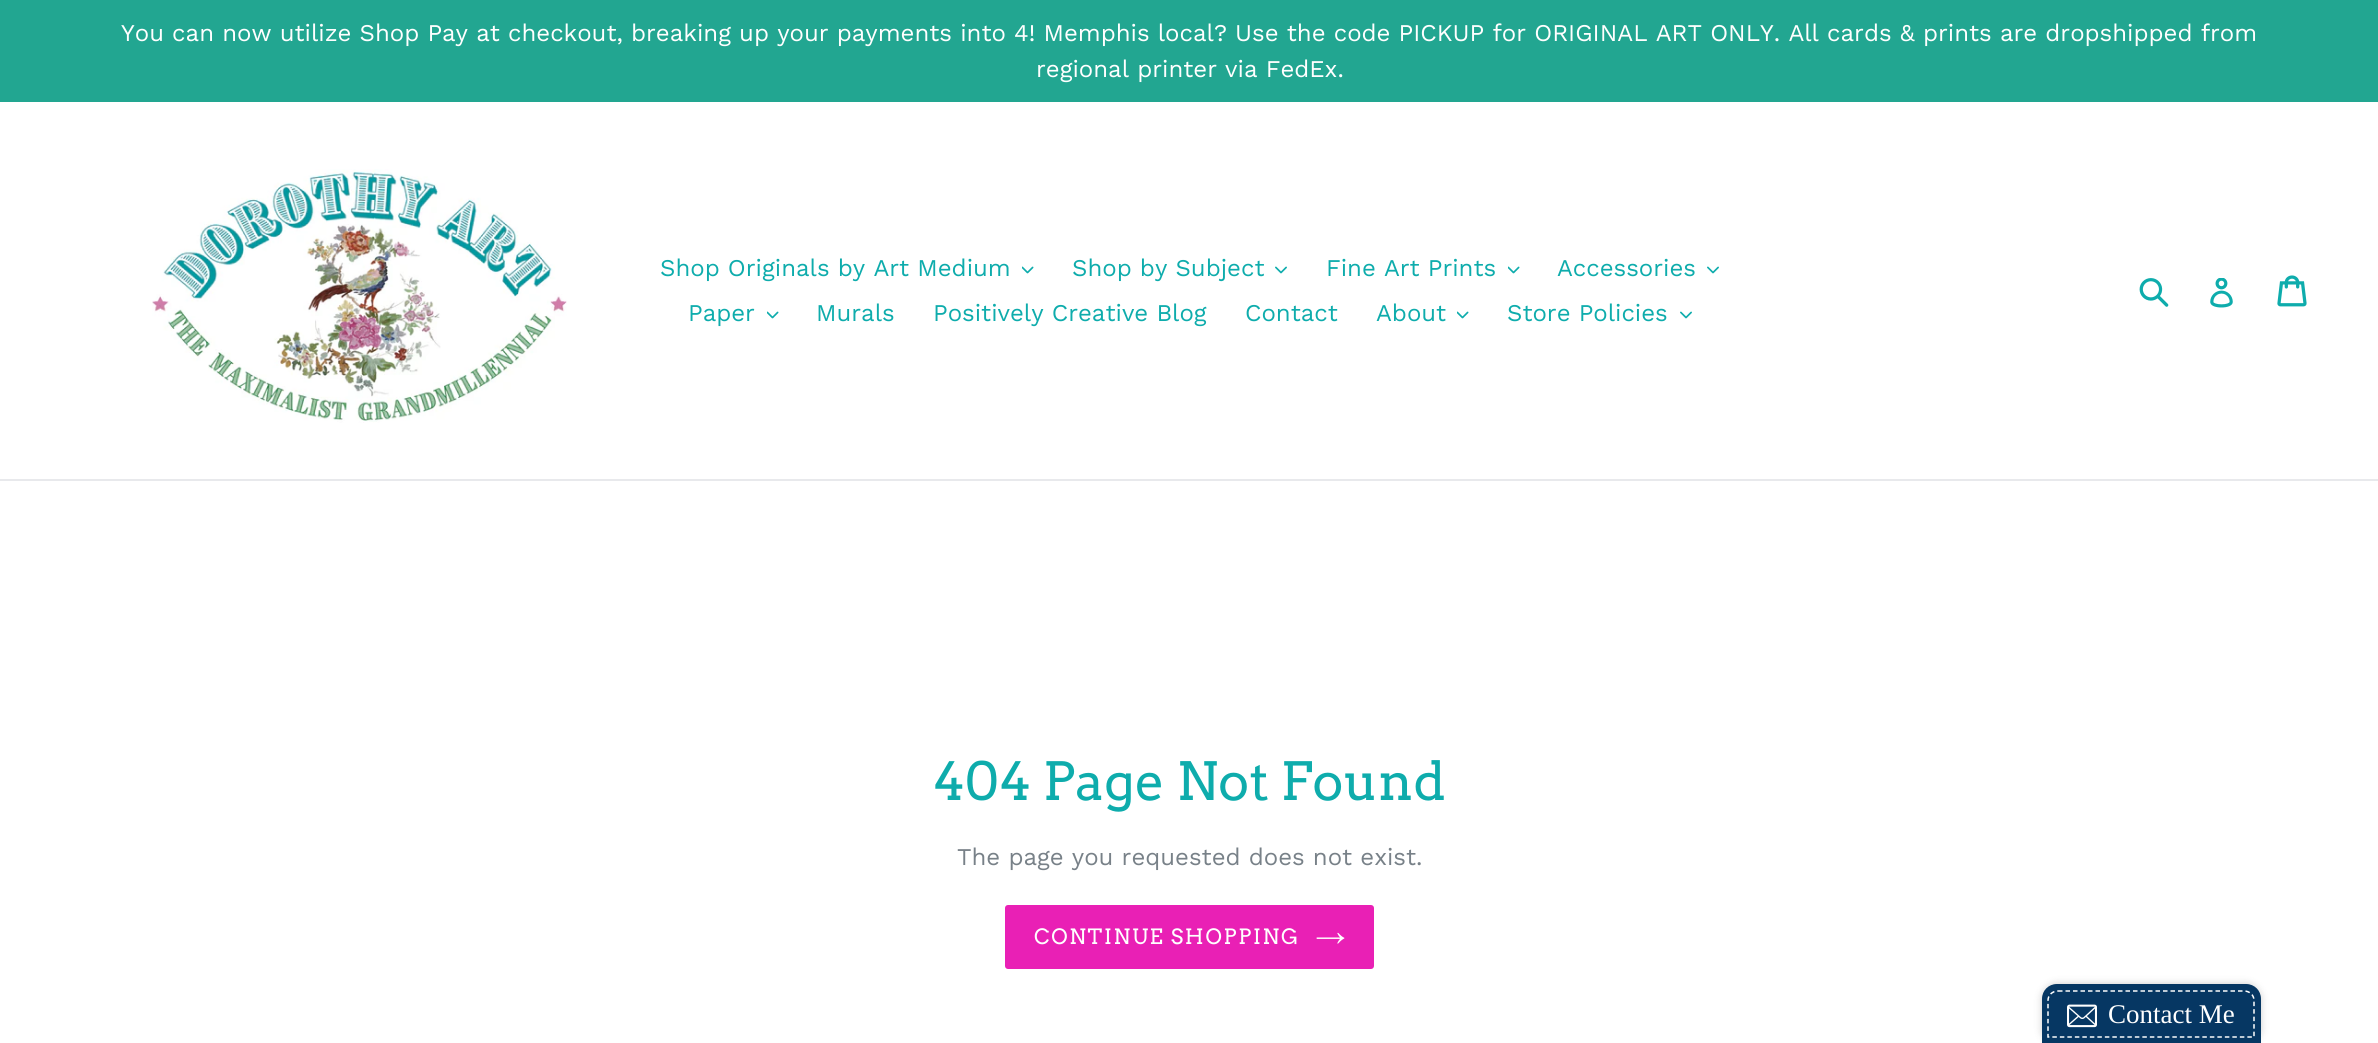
#include <cairo.h>
#include <math.h>
#include <stddef.h>


static void spaced_text(cairo_t *cr, double x, double y, const char *s, double letter, double word) {
    cairo_move_to(cr, x, y);
    while (*s) {
        char ch[5] = {0};
        int n = 0;
        do ch[n++] = *s++; while ((*s & 0xC0) == 0x80);
        cairo_show_text(cr, ch);
        cairo_rel_move_to(cr, letter + word * (*ch == ' '), 0);
    }
}

static void round_rect(cairo_t *cr, double x, double y, double w, double h, double r) {
    cairo_new_sub_path(cr);
    cairo_arc(cr, x + w - r, y + h - r, r, 0, M_PI / 2);
    cairo_arc(cr, x + r, y + h - r, r, M_PI / 2, M_PI);
    cairo_arc(cr, x + r, y + r, r, M_PI, 1.5 * M_PI);
    cairo_arc(cr, x + w - r, y + r, r, 1.5 * M_PI, 2 * M_PI);
    cairo_close_path(cr);
}

static void shadow(cairo_t *cr, double x, double y, double w, double h, double r, double blur, double alpha) {
    cairo_push_group_with_content(cr, CAIRO_CONTENT_ALPHA);
    cairo_set_operator(cr, CAIRO_OPERATOR_SOURCE);
    for (int i = 15; i >= -15 && fmin(w, h) + blur * i / 3 > 0; i -= 2) {
        double e = blur * i / 6;
        cairo_set_source_rgba(cr, 0, 0, 0, alpha * erfc((i - 1) / 8.5) / 2);
        round_rect(cr, x - e, y - e, w + 2 * e, h + 2 * e, fmax(0, fmin(r + e + blur * .6, fmin(w, h) / 2 + e)));
        cairo_fill(cr);
    }
    cairo_pattern_t *soft = cairo_pop_group(cr);
    cairo_mask(cr, soft);
    cairo_pattern_destroy(soft);
}

static void picture(cairo_t *cr, const char *path, double x, double y, double w, double h) {
    cairo_surface_t *image = cairo_image_surface_create_from_png(path);
    cairo_save(cr);
    cairo_set_source_surface(cr, image, x, y);
    cairo_rectangle(cr, x, y, w, h);
    cairo_fill(cr);
    cairo_restore(cr);
    cairo_surface_destroy(image);
}

int main(void) {
    cairo_surface_t *surface = cairo_image_surface_create(CAIRO_FORMAT_RGB24, 2378, 1043);
    cairo_t *cr = cairo_create(surface);
    cairo_font_options_t *options = cairo_font_options_create();
    cairo_font_options_set_hint_metrics(options, CAIRO_HINT_METRICS_OFF);
    cairo_font_options_set_hint_style(options, CAIRO_HINT_STYLE_NONE);
    cairo_set_font_options(cr, options);
    cairo_set_miter_limit(cr, 4);
    cairo_set_source_rgb(cr, 1, 1, 1);
    cairo_paint(cr);
    cairo_set_source_rgb(cr, 0.133, 0.651, 0.569);
    cairo_rectangle(cr, 0, 0, 2378, 102);
    cairo_fill(cr);
    cairo_select_font_face(cr, "Work Sans", CAIRO_FONT_SLANT_NORMAL, CAIRO_FONT_WEIGHT_NORMAL);
    cairo_set_font_size(cr, 24);
    cairo_set_source_rgb(cr, 1, 1, 1);
    cairo_move_to(cr, 121, 41);
    cairo_show_text(cr, "You can now utilize Shop Pay at checkout, breaking up your payments into 4! Memphis local? Use the code PICKUP for ORIGINAL ART ONLY. All cards & prints are dropshipped from");
    cairo_move_to(cr, 1036, 77);
    cairo_show_text(cr, "regional printer via FedEx.");
    cairo_set_source_rgb(cr, 0.91, 0.914, 0.922);
    cairo_rectangle(cr, 0, 479, 2378, 2);
    cairo_fill(cr);
    picture(cr, "img1.png", 152, 169, 415, 254);
    cairo_set_source_rgb(cr, 0.055, 0.675, 0.675);
    cairo_move_to(cr, 660, 276);
    cairo_show_text(cr, "Shop Originals by Art Medium");
    picture(cr, "img2.png", 1022, 266, 12, 8);
    cairo_move_to(cr, 1072, 276);
    cairo_show_text(cr, "Shop by Subject");
    picture(cr, "img3.png", 1275, 266, 12, 8);
    cairo_move_to(cr, 1326, 276);
    cairo_show_text(cr, "Fine Art Prints");
    picture(cr, "img2.png", 1508, 266, 12, 8);
    cairo_move_to(cr, 1557, 276);
    cairo_show_text(cr, "Accessories");
    picture(cr, "img3.png", 1707, 266, 12, 8);
    cairo_move_to(cr, 688, 321);
    cairo_show_text(cr, "Paper");
    picture(cr, "img2.png", 767, 311, 12, 8);
    cairo_move_to(cr, 816, 321);
    cairo_show_text(cr, "Murals");
    cairo_move_to(cr, 933, 321);
    cairo_show_text(cr, "Positively Creative Blog");
    cairo_move_to(cr, 1245, 321);
    cairo_show_text(cr, "Contact");
    cairo_move_to(cr, 1376, 321);
    cairo_show_text(cr, "About");
    picture(cr, "img2.png", 1457, 311, 12, 8);
    cairo_move_to(cr, 1507, 321);
    cairo_show_text(cr, "Store Policies");
    picture(cr, "img3.png", 1680, 311, 12, 8);
    picture(cr, "img4.png", 2139, 278, 30, 29);
    picture(cr, "img5.png", 2210, 278, 23, 30);
    picture(cr, "img6.png", 2277, 275, 30, 32);
    cairo_select_font_face(cr, "Arvo", CAIRO_FONT_SLANT_NORMAL, CAIRO_FONT_WEIGHT_NORMAL);
    cairo_set_font_size(cr, 52.5);
    cairo_move_to(cr, 933, 800);
    cairo_show_text(cr, "404 Page Not Found");
    cairo_select_font_face(cr, "Work Sans", CAIRO_FONT_SLANT_NORMAL, CAIRO_FONT_WEIGHT_NORMAL);
    cairo_set_font_size(cr, 24);
    cairo_set_source_rgb(cr, 0.471, 0.506, 0.533);
    cairo_move_to(cr, 957, 865);
    cairo_show_text(cr, "The page you requested does not exist.");
    cairo_set_source_rgb(cr, 0.914, 0.125, 0.71);
    round_rect(cr, 1005, 905, 369, 64, 3);
    cairo_fill(cr);
    cairo_select_font_face(cr, "Arvo", CAIRO_FONT_SLANT_NORMAL, CAIRO_FONT_WEIGHT_NORMAL);
    cairo_set_font_size(cr, 21);
    cairo_set_source_rgb(cr, 1, 1, 1);
    spaced_text(cr, 1034, 944, "CONTINUE SHOPPING", 1.7, 0);
    picture(cr, "img7.png", 1316, 932, 29, 12);
    cairo_set_source_rgb(cr, 0, 0, 0);
    shadow(cr, 2042, 984, 219, 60, 15, 4, 0.2);
    cairo_set_source_rgb(cr, 0.027, 0.216, 0.388);
    cairo_new_path(cr);
    cairo_move_to(cr, 2057, 984);
    cairo_line_to(cr, 2246, 984);
    cairo_curve_to(cr, 2254.5, 984, 2261, 990.5, 2261, 999);
    cairo_line_to(cr, 2261, 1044);
    cairo_line_to(cr, 2042, 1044);
    cairo_line_to(cr, 2042, 999);
    cairo_curve_to(cr, 2042, 990.5, 2048.5, 984, 2057, 984);
    cairo_close_path(cr);
    cairo_fill(cr);
    cairo_new_path(cr);
    cairo_move_to(cr, 2058, 991);
    cairo_line_to(cr, 2244, 991);
    cairo_curve_to(cr, 2249.5, 991, 2254, 995, 2254, 1000.5);
    cairo_line_to(cr, 2254, 1037);
    cairo_line_to(cr, 2048, 1037);
    cairo_line_to(cr, 2048, 1000.5);
    cairo_curve_to(cr, 2048, 995, 2052.5, 991, 2058, 991);
    cairo_close_path(cr);
    cairo_set_source_rgb(cr, 1, 1, 1);
    cairo_set_line_width(cr, 1.5);
    cairo_set_dash(cr, (double[]){4.5, 3}, 2, 0);
    cairo_stroke(cr);
    picture(cr, "img8.png", 2067, 1004, 30, 24);
    cairo_select_font_face(cr, "Liberation Serif", CAIRO_FONT_SLANT_NORMAL, CAIRO_FONT_WEIGHT_NORMAL);
    cairo_set_font_size(cr, 27);
    cairo_move_to(cr, 2108, 1023);
    cairo_show_text(cr, "Contact Me");
    cairo_surface_write_to_png(surface, "page.png");
    cairo_font_options_destroy(options);
    cairo_destroy(cr);
    cairo_surface_destroy(surface);
    return 0;
}
